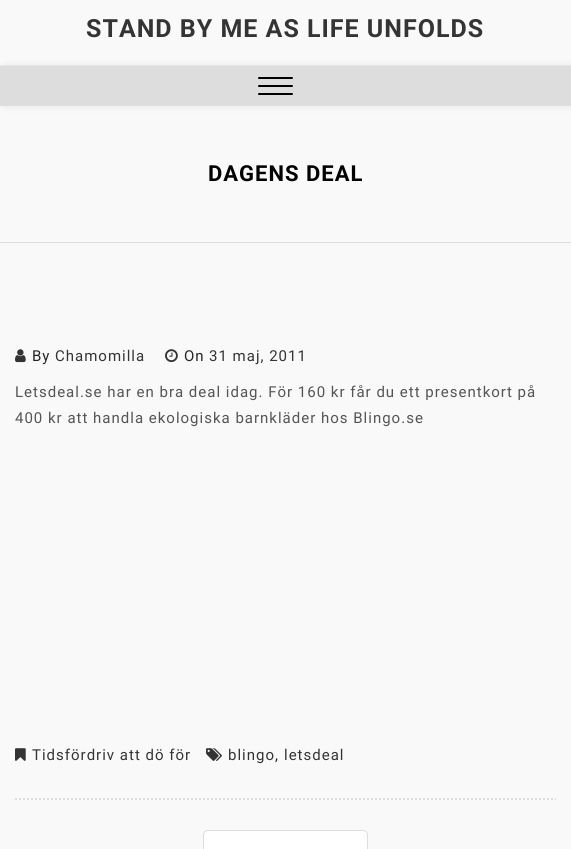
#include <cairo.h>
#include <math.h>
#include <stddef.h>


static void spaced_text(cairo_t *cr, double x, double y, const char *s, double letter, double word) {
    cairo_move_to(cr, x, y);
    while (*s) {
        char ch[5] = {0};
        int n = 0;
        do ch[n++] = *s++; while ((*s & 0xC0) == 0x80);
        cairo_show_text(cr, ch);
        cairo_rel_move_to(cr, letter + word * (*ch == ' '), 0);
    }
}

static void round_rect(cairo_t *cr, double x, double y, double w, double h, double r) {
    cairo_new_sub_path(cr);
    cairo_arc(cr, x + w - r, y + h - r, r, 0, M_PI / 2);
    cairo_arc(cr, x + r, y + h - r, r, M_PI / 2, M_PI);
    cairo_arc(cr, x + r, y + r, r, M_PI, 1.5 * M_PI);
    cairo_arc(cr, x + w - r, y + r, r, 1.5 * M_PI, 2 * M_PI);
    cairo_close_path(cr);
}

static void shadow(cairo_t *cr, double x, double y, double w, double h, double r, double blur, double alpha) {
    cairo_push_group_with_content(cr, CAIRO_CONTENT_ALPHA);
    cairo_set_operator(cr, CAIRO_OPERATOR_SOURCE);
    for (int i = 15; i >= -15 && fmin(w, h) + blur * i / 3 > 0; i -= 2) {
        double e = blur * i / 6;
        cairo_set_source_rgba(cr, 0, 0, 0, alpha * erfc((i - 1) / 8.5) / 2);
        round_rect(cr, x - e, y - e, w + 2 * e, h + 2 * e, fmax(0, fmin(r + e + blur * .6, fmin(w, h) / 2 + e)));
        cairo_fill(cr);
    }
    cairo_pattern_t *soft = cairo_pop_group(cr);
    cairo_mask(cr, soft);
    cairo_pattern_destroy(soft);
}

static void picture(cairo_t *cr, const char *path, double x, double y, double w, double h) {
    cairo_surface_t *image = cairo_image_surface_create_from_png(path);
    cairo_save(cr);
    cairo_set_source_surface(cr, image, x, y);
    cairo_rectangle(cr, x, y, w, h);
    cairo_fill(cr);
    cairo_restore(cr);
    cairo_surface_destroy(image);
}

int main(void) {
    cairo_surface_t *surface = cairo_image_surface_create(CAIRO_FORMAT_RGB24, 571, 849);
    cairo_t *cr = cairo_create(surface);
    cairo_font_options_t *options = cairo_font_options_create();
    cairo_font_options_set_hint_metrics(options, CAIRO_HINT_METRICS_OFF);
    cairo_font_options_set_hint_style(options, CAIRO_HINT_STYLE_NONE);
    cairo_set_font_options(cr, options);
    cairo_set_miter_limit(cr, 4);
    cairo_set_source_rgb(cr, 0.973, 0.976, 0.98);
    cairo_paint(cr);
    cairo_set_source_rgb(cr, 0.933, 0.933, 0.933);
    cairo_rectangle(cr, 0, 65, 571, 1);
    cairo_fill(cr);
    cairo_select_font_face(cr, "Roboto", CAIRO_FONT_SLANT_NORMAL, CAIRO_FONT_WEIGHT_BOLD);
    cairo_set_font_size(cr, 25);
    cairo_set_source_rgb(cr, 0.204, 0.204, 0.204);
    spaced_text(cr, 86, 37, "STAND BY ME AS LIFE UNFOLDS", 1, 0);
    cairo_set_source_rgb(cr, 0.02, 0.02, 0.024);
    shadow(cr, 5, 66, 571, 40, 0, 5, 0.08);
    cairo_set_source_rgb(cr, 0.867, 0.867, 0.867);
    cairo_rectangle(cr, 0, 66, 571, 40);
    cairo_fill(cr);
    cairo_set_source_rgb(cr, 0, 0, 0);
    round_rect(cr, 258, 77, 35, 2, 1);
    cairo_fill(cr);
    round_rect(cr, 258, 85, 35, 2, 1);
    cairo_fill(cr);
    round_rect(cr, 258, 93, 35, 2, 1);
    cairo_fill(cr);
    cairo_set_source_rgb(cr, 0.867, 0.867, 0.867);
    cairo_rectangle(cr, 0, 242, 571, 1);
    cairo_fill(cr);
    cairo_set_font_size(cr, 22);
    cairo_set_source_rgb(cr, 0, 0, 0);
    spaced_text(cr, 208, 181, "DAGENS DEAL", 1, 0);
    cairo_new_path(cr);
    cairo_move_to(cr, 15, 799);
    cairo_line_to(cr, 556, 799);
    cairo_set_source_rgb(cr, 0.867, 0.867, 0.867);
    cairo_set_dash(cr, (double[]){2, 2}, 2, 0);
    cairo_stroke(cr);
    picture(cr, "img1.png", 15, 349, 11, 14);
    cairo_select_font_face(cr, "Roboto", CAIRO_FONT_SLANT_NORMAL, CAIRO_FONT_WEIGHT_NORMAL);
    cairo_set_font_size(cr, 15);
    cairo_set_source_rgb(cr, 0.145, 0.145, 0.145);
    spaced_text(cr, 32, 361, "By", 1, 0);
    cairo_set_source_rgb(cr, 0.204, 0.204, 0.204);
    spaced_text(cr, 55, 361, "Chamomilla", 1, 0);
    picture(cr, "img2.png", 165, 349, 13, 14);
    cairo_set_source_rgb(cr, 0.145, 0.145, 0.145);
    spaced_text(cr, 184, 361, "On", 1, 0);
    cairo_set_source_rgb(cr, 0.204, 0.204, 0.204);
    spaced_text(cr, 209, 361, "31 maj, 2011", 1, 0);
    cairo_set_source_rgb(cr, 0.333, 0.333, 0.333);
    spaced_text(cr, 15, 397, "Letsdeal.se har en bra deal idag. För 160 kr får du ett presentkort på", 1, 0);
    spaced_text(cr, 15, 423, "400 kr att handla ekologiska barnkläder hos Blingo.se", 1, 0);
    picture(cr, "img3.png", 15, 748, 11, 13);
    cairo_set_source_rgb(cr, 0.204, 0.204, 0.204);
    spaced_text(cr, 32, 760, "Tidsfördriv att dö för", 1, 0);
    picture(cr, "img4.png", 206, 748, 16, 13);
    spaced_text(cr, 228, 760, "blingo", 1, 0);
    cairo_set_source_rgb(cr, 0.145, 0.145, 0.145);
    spaced_text(cr, 275, 760, ",", 1, 0);
    cairo_set_source_rgb(cr, 0.204, 0.204, 0.204);
    spaced_text(cr, 284, 760, "letsdeal", 1, 0);
    cairo_set_source_rgb(cr, 1, 1, 1);
    round_rect(cr, 203.5, 830.5, 164, 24, 4.5);
    cairo_fill_preserve(cr);
    cairo_set_source_rgb(cr, 0.867, 0.867, 0.867);
    cairo_set_line_width(cr, 1);
    cairo_set_dash(cr, NULL, 0, 0);
    cairo_stroke(cr);
    cairo_surface_write_to_png(surface, "page.png");
    cairo_font_options_destroy(options);
    cairo_destroy(cr);
    cairo_surface_destroy(surface);
    return 0;
}
